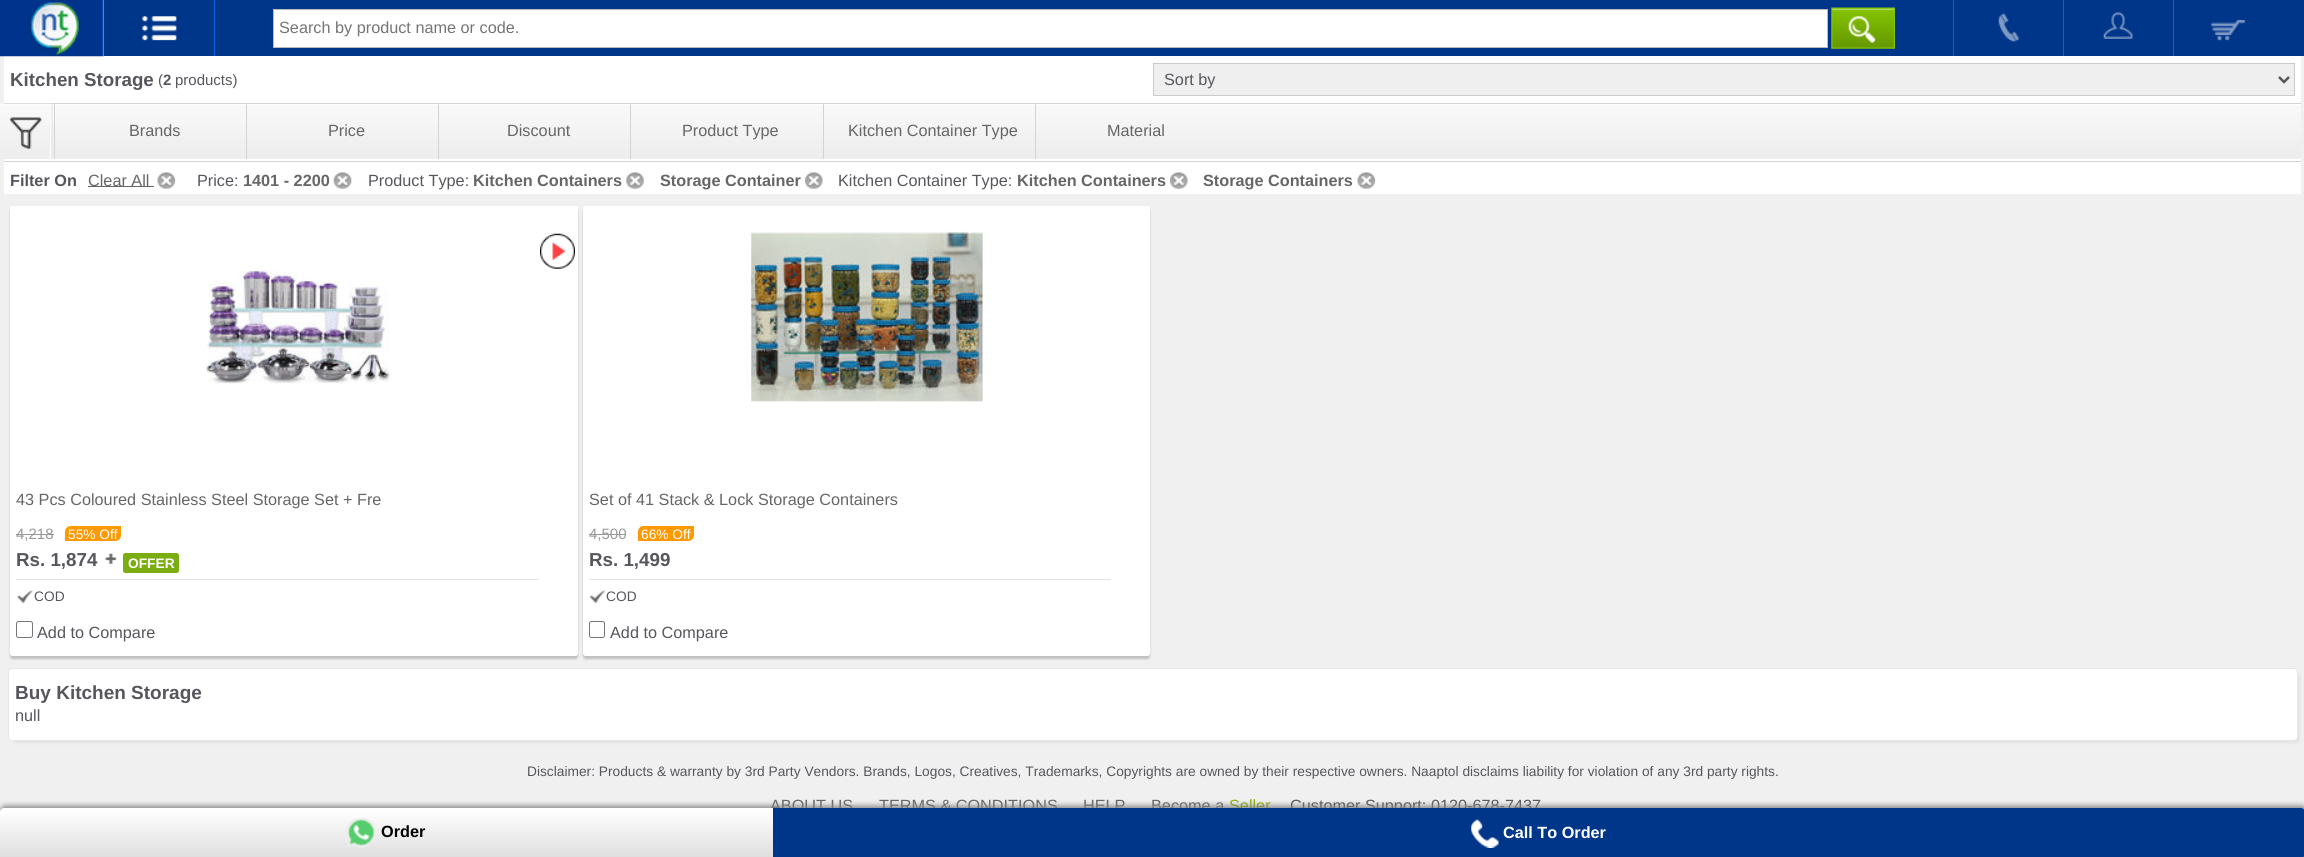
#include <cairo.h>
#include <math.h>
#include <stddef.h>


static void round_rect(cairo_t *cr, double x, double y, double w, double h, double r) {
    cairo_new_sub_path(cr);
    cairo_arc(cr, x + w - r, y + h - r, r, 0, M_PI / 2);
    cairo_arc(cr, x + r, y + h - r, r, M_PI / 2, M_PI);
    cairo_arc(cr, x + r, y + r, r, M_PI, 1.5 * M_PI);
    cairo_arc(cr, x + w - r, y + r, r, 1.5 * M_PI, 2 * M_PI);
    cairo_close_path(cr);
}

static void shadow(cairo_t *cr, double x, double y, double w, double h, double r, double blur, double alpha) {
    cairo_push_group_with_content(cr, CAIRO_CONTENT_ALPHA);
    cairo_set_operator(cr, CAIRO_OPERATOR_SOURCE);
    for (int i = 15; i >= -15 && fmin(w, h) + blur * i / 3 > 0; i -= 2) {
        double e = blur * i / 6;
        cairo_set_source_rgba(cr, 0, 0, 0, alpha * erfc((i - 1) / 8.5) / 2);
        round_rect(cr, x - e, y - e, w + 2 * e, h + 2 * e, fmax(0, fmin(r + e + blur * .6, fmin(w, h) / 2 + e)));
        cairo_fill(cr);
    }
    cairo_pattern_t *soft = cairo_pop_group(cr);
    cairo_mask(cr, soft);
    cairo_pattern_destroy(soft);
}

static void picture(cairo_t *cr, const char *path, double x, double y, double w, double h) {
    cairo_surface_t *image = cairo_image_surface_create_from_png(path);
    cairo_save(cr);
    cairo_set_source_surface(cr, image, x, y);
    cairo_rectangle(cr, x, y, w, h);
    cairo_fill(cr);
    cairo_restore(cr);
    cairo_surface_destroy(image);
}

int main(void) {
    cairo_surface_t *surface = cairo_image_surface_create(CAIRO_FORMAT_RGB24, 2304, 857);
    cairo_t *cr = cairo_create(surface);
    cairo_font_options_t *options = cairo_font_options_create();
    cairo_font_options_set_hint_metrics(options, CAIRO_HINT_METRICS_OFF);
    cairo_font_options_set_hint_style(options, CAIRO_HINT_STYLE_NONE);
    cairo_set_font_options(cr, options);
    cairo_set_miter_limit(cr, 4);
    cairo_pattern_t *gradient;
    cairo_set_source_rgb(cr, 1, 1, 1);
    cairo_paint(cr);
    cairo_set_source_rgb(cr, 0.941, 0.941, 0.941);
    cairo_rectangle(cr, 0, 56, 2304, 801);
    cairo_fill(cr);
    cairo_set_source_rgb(cr, 1, 1, 1);
    cairo_rectangle(cr, 4, 56, 2297, 138);
    cairo_fill(cr);
    picture(cr, "img1.png", 0, 0, 104, 57);
    cairo_set_source_rgb(cr, 0, 0.212, 0.541);
    cairo_rectangle(cr, 104, 0, 2200, 56);
    cairo_fill(cr);
    picture(cr, "img2.png", 142, 16, 35, 25);
    cairo_set_source_rgb(cr, 0.047, 0.376, 0.859);
    cairo_rectangle(cr, 214, 0, 1, 56);
    cairo_fill(cr);
    cairo_set_source_rgb(cr, 1, 1, 1);
    cairo_rectangle(cr, 273.5, 9.5, 1554, 38);
    cairo_fill_preserve(cr);
    cairo_set_source_rgb(cr, 0.729, 0.729, 0.729);
    cairo_set_line_width(cr, 1);
    cairo_stroke(cr);
    cairo_select_font_face(cr, "Liberation Sans", CAIRO_FONT_SLANT_NORMAL, CAIRO_FONT_WEIGHT_NORMAL);
    cairo_set_font_size(cr, 16.25);
    cairo_set_source_rgb(cr, 0.459, 0.459, 0.459);
    cairo_move_to(cr, 279, 33);
    cairo_show_text(cr, "Search by product name or code.");
    picture(cr, "img3.png", 1831, 7, 64, 42);
    cairo_set_source_rgb(cr, 0.047, 0.376, 0.859);
    cairo_rectangle(cr, 1953, 0, 1, 56);
    cairo_fill(cr);
    picture(cr, "img4.png", 1998, 13, 21, 29);
    cairo_rectangle(cr, 2063, 0, 1, 56);
    cairo_fill(cr);
    picture(cr, "img5.png", 2103, 12, 30, 27);
    cairo_rectangle(cr, 2173, 0, 1, 56);
    cairo_fill(cr);
    picture(cr, "img6.png", 2211, 19, 35, 22);
    cairo_select_font_face(cr, "Liberation Sans", CAIRO_FONT_SLANT_NORMAL, CAIRO_FONT_WEIGHT_BOLD);
    cairo_set_font_size(cr, 18.75);
    cairo_set_source_rgb(cr, 0.337, 0.337, 0.361);
    cairo_move_to(cr, 10, 86);
    cairo_show_text(cr, "Kitchen Storage");
    cairo_select_font_face(cr, "Liberation Sans", CAIRO_FONT_SLANT_NORMAL, CAIRO_FONT_WEIGHT_NORMAL);
    cairo_set_font_size(cr, 15);
    cairo_move_to(cr, 158, 85);
    cairo_show_text(cr, "(");
    cairo_select_font_face(cr, "Liberation Sans", CAIRO_FONT_SLANT_NORMAL, CAIRO_FONT_WEIGHT_BOLD);
    cairo_move_to(cr, 163, 85);
    cairo_show_text(cr, "2");
    cairo_select_font_face(cr, "Liberation Sans", CAIRO_FONT_SLANT_NORMAL, CAIRO_FONT_WEIGHT_NORMAL);
    cairo_move_to(cr, 175, 85);
    cairo_show_text(cr, "products)");
    cairo_set_source_rgb(cr, 0.937, 0.937, 0.937);
    cairo_rectangle(cr, 1153.5, 63.5, 1141, 32);
    cairo_fill_preserve(cr);
    cairo_set_source_rgb(cr, 0.796, 0.796, 0.796);
    cairo_stroke(cr);
    cairo_new_path(cr);
    cairo_move_to(cr, 2279, 77);
    cairo_line_to(cr, 2284, 82);
    cairo_line_to(cr, 2289, 77);
    cairo_set_source_rgb(cr, 0.337, 0.337, 0.361);
    cairo_set_line_width(cr, 2.5);
    cairo_stroke(cr);
    cairo_set_font_size(cr, 16.25);
    cairo_move_to(cr, 1164, 85);
    cairo_show_text(cr, "Sort by");
    picture(cr, "img7.png", 4, 105, 2297, 54);
    cairo_set_source_rgb(cr, 0.827, 0.827, 0.827);
    cairo_rectangle(cr, 4, 103, 2297, 1);
    cairo_fill(cr);
    cairo_rectangle(cr, 4, 161, 2297, 1);
    cairo_fill(cr);
    picture(cr, "img8.png", 0, 103, 53, 56);
    cairo_rectangle(cr, 54, 104, 1, 55);
    cairo_fill(cr);
    cairo_set_source_rgb(cr, 0.4, 0.4, 0.4);
    cairo_move_to(cr, 129, 136);
    cairo_show_text(cr, "Brands");
    cairo_set_source_rgb(cr, 0.827, 0.827, 0.827);
    cairo_rectangle(cr, 246, 104, 1, 55);
    cairo_fill(cr);
    cairo_set_source_rgb(cr, 0.4, 0.4, 0.4);
    cairo_move_to(cr, 328, 136);
    cairo_show_text(cr, "Price");
    cairo_set_source_rgb(cr, 0.827, 0.827, 0.827);
    cairo_rectangle(cr, 438, 104, 1, 55);
    cairo_fill(cr);
    cairo_set_source_rgb(cr, 0.4, 0.4, 0.4);
    cairo_move_to(cr, 507, 136);
    cairo_show_text(cr, "Discount");
    cairo_set_source_rgb(cr, 0.827, 0.827, 0.827);
    cairo_rectangle(cr, 630, 104, 1, 55);
    cairo_fill(cr);
    cairo_set_source_rgb(cr, 0.4, 0.4, 0.4);
    cairo_move_to(cr, 682, 136);
    cairo_show_text(cr, "Product Type");
    cairo_set_source_rgb(cr, 0.827, 0.827, 0.827);
    cairo_rectangle(cr, 823, 104, 1, 55);
    cairo_fill(cr);
    cairo_set_source_rgb(cr, 0.4, 0.4, 0.4);
    cairo_move_to(cr, 848, 136);
    cairo_show_text(cr, "Kitchen Container Type");
    cairo_set_source_rgb(cr, 0.827, 0.827, 0.827);
    cairo_rectangle(cr, 1035, 104, 1, 55);
    cairo_fill(cr);
    cairo_set_source_rgb(cr, 0.4, 0.4, 0.4);
    cairo_move_to(cr, 1107, 136);
    cairo_show_text(cr, "Material");
    cairo_select_font_face(cr, "Liberation Sans", CAIRO_FONT_SLANT_NORMAL, CAIRO_FONT_WEIGHT_BOLD);
    cairo_set_source_rgb(cr, 0.337, 0.337, 0.361);
    cairo_move_to(cr, 10, 186);
    cairo_show_text(cr, "Filter On");
    cairo_set_source_rgb(cr, 0.4, 0.4, 0.4);
    cairo_rectangle(cr, 88, 186, 66, 1);
    cairo_fill(cr);
    cairo_select_font_face(cr, "Liberation Sans", CAIRO_FONT_SLANT_NORMAL, CAIRO_FONT_WEIGHT_NORMAL);
    cairo_move_to(cr, 88, 186);
    cairo_show_text(cr, "Clear All");
    picture(cr, "img9.png", 157, 172, 19, 17);
    cairo_set_source_rgb(cr, 0.337, 0.337, 0.361);
    cairo_move_to(cr, 197, 186);
    cairo_show_text(cr, "Price:");
    cairo_select_font_face(cr, "Liberation Sans", CAIRO_FONT_SLANT_NORMAL, CAIRO_FONT_WEIGHT_BOLD);
    cairo_set_source_rgb(cr, 0.4, 0.4, 0.4);
    cairo_move_to(cr, 243, 186);
    cairo_show_text(cr, "1401 - 2200");
    picture(cr, "img10.png", 333, 172, 19, 17);
    cairo_select_font_face(cr, "Liberation Sans", CAIRO_FONT_SLANT_NORMAL, CAIRO_FONT_WEIGHT_NORMAL);
    cairo_set_source_rgb(cr, 0.337, 0.337, 0.361);
    cairo_move_to(cr, 368, 186);
    cairo_show_text(cr, "Product Type:");
    cairo_select_font_face(cr, "Liberation Sans", CAIRO_FONT_SLANT_NORMAL, CAIRO_FONT_WEIGHT_BOLD);
    cairo_set_source_rgb(cr, 0.4, 0.4, 0.4);
    cairo_move_to(cr, 473, 186);
    cairo_show_text(cr, "Kitchen Containers");
    picture(cr, "img11.png", 626, 172, 18, 17);
    cairo_move_to(cr, 660, 186);
    cairo_show_text(cr, "Storage Container");
    picture(cr, "img12.png", 804, 172, 19, 17);
    cairo_select_font_face(cr, "Liberation Sans", CAIRO_FONT_SLANT_NORMAL, CAIRO_FONT_WEIGHT_NORMAL);
    cairo_set_source_rgb(cr, 0.337, 0.337, 0.361);
    cairo_move_to(cr, 838, 186);
    cairo_show_text(cr, "Kitchen Container Type:");
    cairo_select_font_face(cr, "Liberation Sans", CAIRO_FONT_SLANT_NORMAL, CAIRO_FONT_WEIGHT_BOLD);
    cairo_set_source_rgb(cr, 0.4, 0.4, 0.4);
    cairo_move_to(cr, 1017, 186);
    cairo_show_text(cr, "Kitchen Containers");
    picture(cr, "img12.png", 1169, 172, 19, 17);
    cairo_move_to(cr, 1203, 186);
    cairo_show_text(cr, "Storage Containers");
    picture(cr, "img9.png", 1357, 172, 19, 17);
    cairo_set_source_rgb(cr, 0, 0, 0);
    shadow(cr, 10, 209, 568, 450, 2.5, 1, 0.2);
    cairo_set_source_rgb(cr, 1, 1, 1);
    round_rect(cr, 10, 206, 568, 450, 2.5);
    cairo_fill(cr);
    picture(cr, "img13.png", 540, 233, 35, 36);
    picture(cr, "img14.png", 205, 271, 186, 113);
    cairo_select_font_face(cr, "Liberation Sans", CAIRO_FONT_SLANT_NORMAL, CAIRO_FONT_WEIGHT_NORMAL);
    cairo_set_source_rgb(cr, 0.4, 0.4, 0.4);
    cairo_move_to(cr, 16, 505);
    cairo_show_text(cr, "43 Pcs Coloured Stainless Steel Storage Set + Fre");
    cairo_set_font_size(cr, 15);
    cairo_set_source_rgb(cr, 0.6, 0.6, 0.6);
    cairo_move_to(cr, 16, 539);
    cairo_show_text(cr, "4,218");
    cairo_rectangle(cr, 16, 534, 38, 1);
    cairo_fill(cr);
    cairo_set_source_rgb(cr, 1, 0.6, 0);
    cairo_new_path(cr);
    cairo_move_to(cr, 71, 526);
    cairo_line_to(cr, 121, 526);
    cairo_line_to(cr, 121, 535);
    cairo_curve_to(cr, 121, 538.5, 118.5, 541, 115, 541);
    cairo_line_to(cr, 65, 541);
    cairo_line_to(cr, 65, 532);
    cairo_curve_to(cr, 65, 528.5, 67.5, 526, 71, 526);
    cairo_close_path(cr);
    cairo_fill(cr);
    cairo_set_font_size(cr, 13.75);
    cairo_set_source_rgb(cr, 1, 1, 1);
    cairo_move_to(cr, 68, 539);
    cairo_show_text(cr, "55% Off");
    cairo_select_font_face(cr, "Liberation Sans", CAIRO_FONT_SLANT_NORMAL, CAIRO_FONT_WEIGHT_BOLD);
    cairo_set_font_size(cr, 18.75);
    cairo_set_source_rgb(cr, 0.337, 0.337, 0.361);
    cairo_move_to(cr, 16, 566);
    cairo_show_text(cr, "Rs. 1,874");
    picture(cr, "img15.png", 105, 553, 12, 11);
    cairo_set_source_rgb(cr, 0.478, 0.678, 0.067);
    round_rect(cr, 123, 553, 56, 20, 2.5);
    cairo_fill(cr);
    cairo_set_font_size(cr, 13.75);
    cairo_set_source_rgb(cr, 1, 1, 1);
    cairo_move_to(cr, 128, 568);
    cairo_show_text(cr, "OFFER");
    cairo_set_source_rgb(cr, 0.894, 0.894, 0.894);
    cairo_rectangle(cr, 16, 579, 523, 1);
    cairo_fill(cr);
    picture(cr, "img16.png", 17, 590, 16, 14);
    cairo_select_font_face(cr, "Liberation Sans", CAIRO_FONT_SLANT_NORMAL, CAIRO_FONT_WEIGHT_NORMAL);
    cairo_set_source_rgb(cr, 0.337, 0.337, 0.361);
    cairo_move_to(cr, 34, 601);
    cairo_show_text(cr, "COD");
    round_rect(cr, 16.5, 621.5, 16, 16, 2);
    cairo_set_source_rgb(cr, 0.463, 0.463, 0.463);
    cairo_set_line_width(cr, 1);
    cairo_stroke(cr);
    cairo_set_font_size(cr, 16.25);
    cairo_set_source_rgb(cr, 0.337, 0.337, 0.361);
    cairo_move_to(cr, 37, 638);
    cairo_show_text(cr, "Add to Compare");
    cairo_set_source_rgb(cr, 0, 0, 0);
    shadow(cr, 583, 209, 567, 450, 2.5, 1, 0.2);
    cairo_set_source_rgb(cr, 1, 1, 1);
    round_rect(cr, 583, 206, 567, 450, 2.5);
    cairo_fill(cr);
    picture(cr, "img17.png", 751, 231, 232, 171);
    cairo_set_source_rgb(cr, 0.4, 0.4, 0.4);
    cairo_move_to(cr, 589, 505);
    cairo_show_text(cr, "Set of 41 Stack & Lock Storage Containers");
    cairo_set_font_size(cr, 15);
    cairo_set_source_rgb(cr, 0.6, 0.6, 0.6);
    cairo_move_to(cr, 589, 539);
    cairo_show_text(cr, "4,500");
    cairo_rectangle(cr, 589, 534, 37, 1);
    cairo_fill(cr);
    cairo_set_source_rgb(cr, 1, 0.6, 0);
    cairo_new_path(cr);
    cairo_move_to(cr, 644, 526);
    cairo_line_to(cr, 694, 526);
    cairo_line_to(cr, 694, 535);
    cairo_curve_to(cr, 694, 538.5, 691.5, 541, 688, 541);
    cairo_line_to(cr, 638, 541);
    cairo_line_to(cr, 638, 532);
    cairo_curve_to(cr, 638, 528.5, 640.5, 526, 644, 526);
    cairo_close_path(cr);
    cairo_fill(cr);
    cairo_set_font_size(cr, 13.75);
    cairo_set_source_rgb(cr, 1, 1, 1);
    cairo_move_to(cr, 641, 539);
    cairo_show_text(cr, "66% Off");
    cairo_select_font_face(cr, "Liberation Sans", CAIRO_FONT_SLANT_NORMAL, CAIRO_FONT_WEIGHT_BOLD);
    cairo_set_font_size(cr, 18.75);
    cairo_set_source_rgb(cr, 0.337, 0.337, 0.361);
    cairo_move_to(cr, 589, 566);
    cairo_show_text(cr, "Rs. 1,499");
    cairo_set_source_rgb(cr, 0.894, 0.894, 0.894);
    cairo_rectangle(cr, 589, 579, 522, 1);
    cairo_fill(cr);
    picture(cr, "img18.png", 589, 590, 16, 14);
    cairo_select_font_face(cr, "Liberation Sans", CAIRO_FONT_SLANT_NORMAL, CAIRO_FONT_WEIGHT_NORMAL);
    cairo_set_font_size(cr, 13.75);
    cairo_set_source_rgb(cr, 0.337, 0.337, 0.361);
    cairo_move_to(cr, 606, 601);
    cairo_show_text(cr, "COD");
    round_rect(cr, 589.5, 621.5, 15, 16, 2);
    cairo_set_source_rgb(cr, 0.463, 0.463, 0.463);
    cairo_stroke(cr);
    cairo_set_font_size(cr, 16.25);
    cairo_set_source_rgb(cr, 0.337, 0.337, 0.361);
    cairo_move_to(cr, 610, 638);
    cairo_show_text(cr, "Add to Compare");
    cairo_set_source_rgb(cr, 0.827, 0.827, 0.827);
    shadow(cr, 15, 675, 2283, 66, 0, 2.5, 1);
    cairo_set_source_rgb(cr, 1, 1, 1);
    round_rect(cr, 8.5, 668.5, 2289, 72, 3.5);
    cairo_fill_preserve(cr);
    cairo_set_source_rgb(cr, 0.906, 0.906, 0.906);
    cairo_stroke(cr);
    cairo_select_font_face(cr, "Liberation Sans", CAIRO_FONT_SLANT_NORMAL, CAIRO_FONT_WEIGHT_BOLD);
    cairo_set_font_size(cr, 19);
    cairo_set_source_rgb(cr, 0.337, 0.337, 0.361);
    cairo_move_to(cr, 15, 699);
    cairo_show_text(cr, "Buy Kitchen Storage");
    cairo_select_font_face(cr, "Liberation Sans", CAIRO_FONT_SLANT_NORMAL, CAIRO_FONT_WEIGHT_NORMAL);
    cairo_set_font_size(cr, 16.25);
    cairo_move_to(cr, 15, 721);
    cairo_show_text(cr, "null");
    cairo_set_font_size(cr, 13.75);
    cairo_move_to(cr, 527, 776);
    cairo_show_text(cr, "Disclaimer: Products & warranty by 3rd Party Vendors. Brands, Logos, Creatives, Trademarks, Copyrights are owned by their respective owners. Naaptol disclaims liability for violation of any 3rd party rights.");
    cairo_set_font_size(cr, 16.25);
    cairo_set_source_rgb(cr, 0.4, 0.4, 0.4);
    cairo_move_to(cr, 770, 811);
    cairo_show_text(cr, "ABOUT US");
    cairo_move_to(cr, 879, 811);
    cairo_show_text(cr, "TERMS & CONDITIONS");
    cairo_move_to(cr, 1083, 811);
    cairo_show_text(cr, "HELP");
    cairo_move_to(cr, 1151, 811);
    cairo_show_text(cr, "Become a");
    cairo_set_source_rgb(cr, 0.525, 0.698, 0);
    cairo_move_to(cr, 1229, 811);
    cairo_show_text(cr, "Seller");
    cairo_set_source_rgb(cr, 0.337, 0.337, 0.361);
    cairo_move_to(cr, 1290, 811);
    cairo_show_text(cr, "Customer Support: 0120-678-7437");
    cairo_set_source_rgb(cr, 0.502, 0.502, 0.502);
    shadow(cr, 1, 806, 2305, 50, 4, 3, 1);
    gradient = cairo_pattern_create_linear(386, 808, 386, 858);
    cairo_pattern_add_color_stop_rgba(gradient, 0.05, 1, 1, 1, 1);
    cairo_pattern_add_color_stop_rgba(gradient, 1, 0.871, 0.871, 0.871, 1);
    cairo_set_source(cr, gradient);
    cairo_pattern_destroy(gradient);
    cairo_new_path(cr);
    cairo_move_to(cr, 4, 808);
    cairo_line_to(cr, 773, 808);
    cairo_line_to(cr, 773, 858);
    cairo_line_to(cr, 4, 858);
    cairo_curve_to(cr, 2, 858, 0, 856, 0, 854);
    cairo_line_to(cr, 0, 812);
    cairo_curve_to(cr, 0, 810, 2, 808, 4, 808);
    cairo_close_path(cr);
    cairo_fill(cr);
    picture(cr, "img19.png", 346, 818, 29, 30);
    cairo_select_font_face(cr, "Liberation Sans", CAIRO_FONT_SLANT_NORMAL, CAIRO_FONT_WEIGHT_BOLD);
    cairo_set_source_rgb(cr, 0, 0, 0);
    cairo_move_to(cr, 381, 837);
    cairo_show_text(cr, "Order");
    cairo_set_source_rgb(cr, 0, 0.212, 0.541);
    cairo_new_path(cr);
    cairo_move_to(cr, 773, 808);
    cairo_line_to(cr, 2301, 808);
    cairo_curve_to(cr, 2303, 808, 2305, 810, 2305, 812);
    cairo_line_to(cr, 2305, 854);
    cairo_curve_to(cr, 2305, 856, 2303, 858, 2301, 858);
    cairo_line_to(cr, 773, 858);
    cairo_close_path(cr);
    cairo_fill(cr);
    picture(cr, "img20.png", 1471, 819, 28, 29);
    cairo_set_source_rgb(cr, 1, 1, 1);
    cairo_move_to(cr, 1503, 838);
    cairo_show_text(cr, "Call To Order");
    cairo_surface_write_to_png(surface, "page.png");
    cairo_font_options_destroy(options);
    cairo_destroy(cr);
    cairo_surface_destroy(surface);
    return 0;
}
